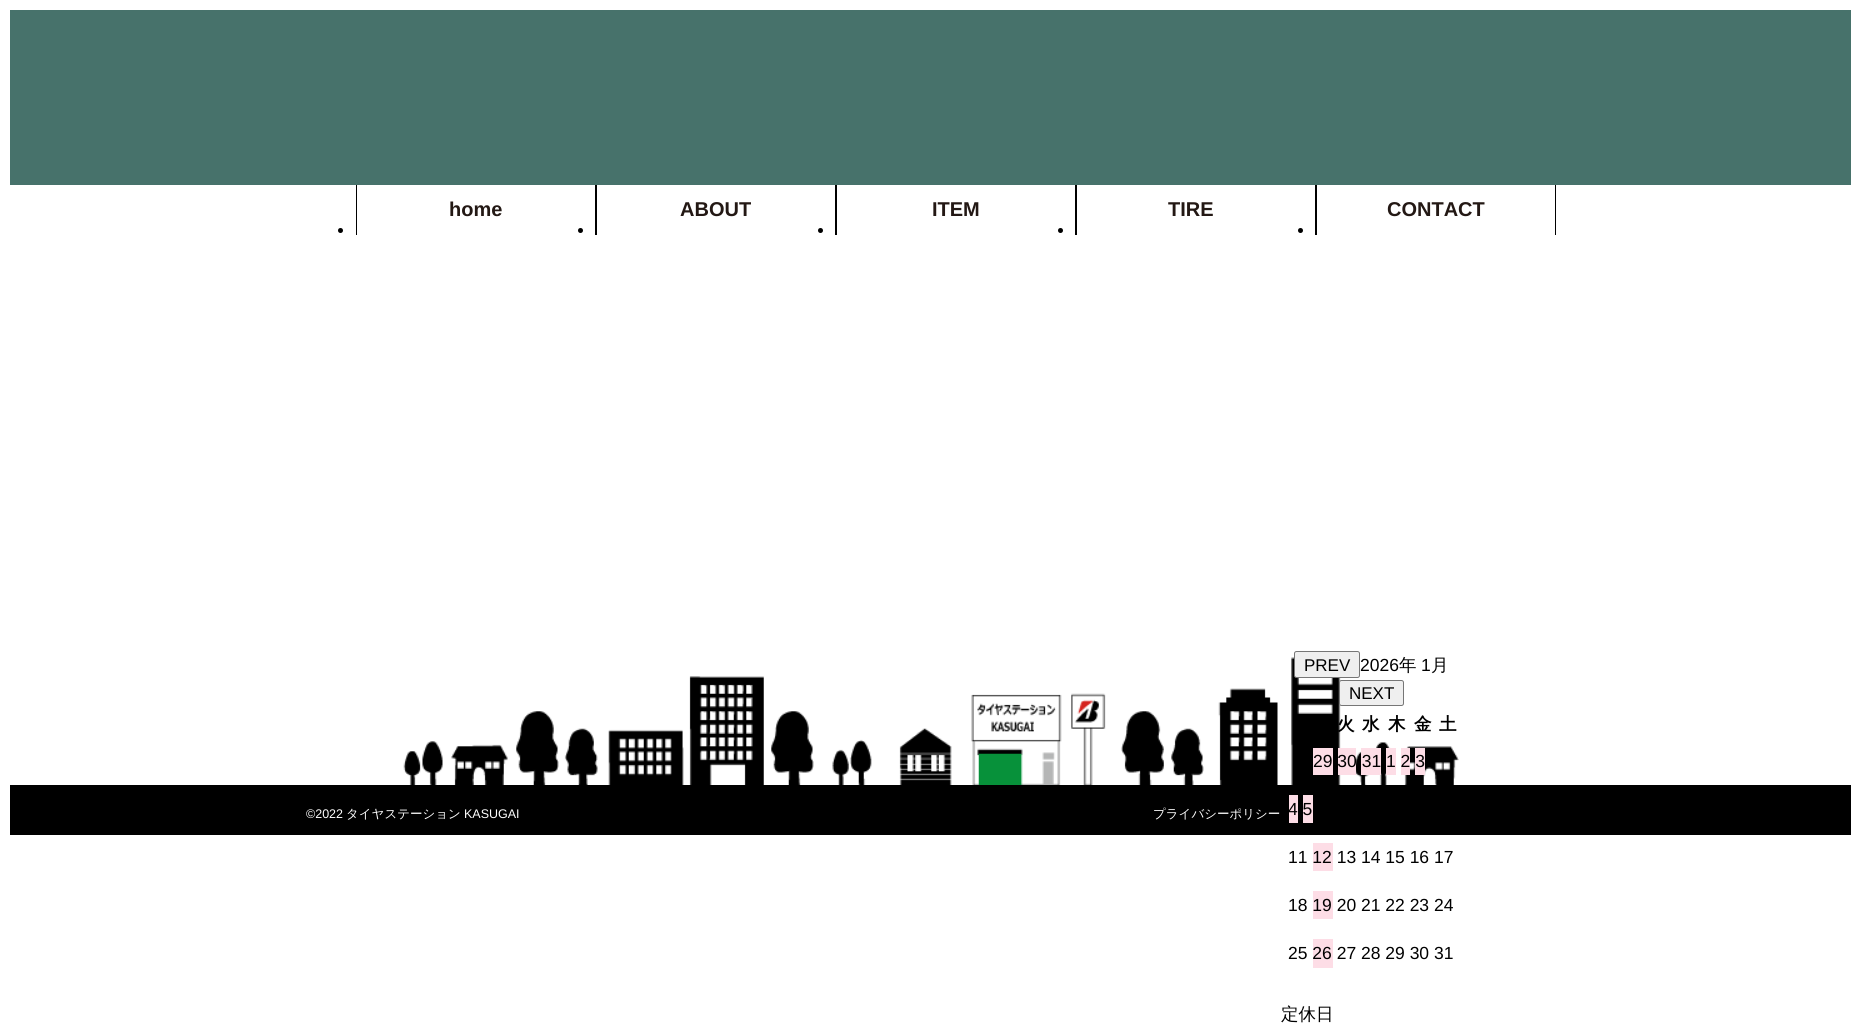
#include <cairo.h>
#include <math.h>
#include <stddef.h>


static void round_rect(cairo_t *cr, double x, double y, double w, double h, double r) {
    cairo_new_sub_path(cr);
    cairo_arc(cr, x + w - r, y + h - r, r, 0, M_PI / 2);
    cairo_arc(cr, x + r, y + h - r, r, M_PI / 2, M_PI);
    cairo_arc(cr, x + r, y + r, r, M_PI, 1.5 * M_PI);
    cairo_arc(cr, x + w - r, y + r, r, 1.5 * M_PI, 2 * M_PI);
    cairo_close_path(cr);
}

static void picture(cairo_t *cr, const char *path, double x, double y, double w, double h) {
    cairo_surface_t *image = cairo_image_surface_create_from_png(path);
    cairo_save(cr);
    cairo_set_source_surface(cr, image, x, y);
    cairo_rectangle(cr, x, y, w, h);
    cairo_fill(cr);
    cairo_restore(cr);
    cairo_surface_destroy(image);
}

int main(void) {
    cairo_surface_t *surface = cairo_image_surface_create(CAIRO_FORMAT_RGB24, 1861, 1029);
    cairo_t *cr = cairo_create(surface);
    cairo_font_options_t *options = cairo_font_options_create();
    cairo_font_options_set_hint_metrics(options, CAIRO_HINT_METRICS_OFF);
    cairo_font_options_set_hint_style(options, CAIRO_HINT_STYLE_NONE);
    cairo_set_font_options(cr, options);
    cairo_set_miter_limit(cr, 4);
    cairo_set_source_rgb(cr, 1, 1, 1);
    cairo_paint(cr);
    cairo_set_source_rgb(cr, 0.278, 0.447, 0.42);
    cairo_rectangle(cr, 10, 10, 1841, 175);
    cairo_fill(cr);
    cairo_set_source_rgb(cr, 0, 0, 0);
    cairo_rectangle(cr, 595, 185, 2, 50);
    cairo_fill(cr);
    cairo_rectangle(cr, 356, 185, 1, 50);
    cairo_fill(cr);
    cairo_select_font_face(cr, "Liberation Sans", CAIRO_FONT_SLANT_NORMAL, CAIRO_FONT_WEIGHT_BOLD);
    cairo_set_font_size(cr, 20);
    cairo_set_source_rgb(cr, 0.137, 0.094, 0.082);
    cairo_move_to(cr, 449, 216);
    cairo_show_text(cr, "home");
    cairo_set_source_rgb(cr, 0, 0, 0);
    cairo_new_path(cr);
    cairo_arc(cr, 340.5, 230.5, 2.5, 0, 2 * M_PI);
    cairo_fill(cr);
    cairo_rectangle(cr, 835, 185, 2, 50);
    cairo_fill(cr);
    cairo_set_source_rgb(cr, 0.137, 0.094, 0.082);
    cairo_move_to(cr, 680, 216);
    cairo_show_text(cr, "ABOUT");
    cairo_set_source_rgb(cr, 0, 0, 0);
    cairo_new_path(cr);
    cairo_arc(cr, 580.5, 230.5, 2.5, 0, 2 * M_PI);
    cairo_fill(cr);
    cairo_rectangle(cr, 1075, 185, 2, 50);
    cairo_fill(cr);
    cairo_set_source_rgb(cr, 0.137, 0.094, 0.082);
    cairo_move_to(cr, 932, 216);
    cairo_show_text(cr, "ITEM");
    cairo_set_source_rgb(cr, 0, 0, 0);
    cairo_new_path(cr);
    cairo_arc(cr, 820.5, 230.5, 2.5, 0, 2 * M_PI);
    cairo_fill(cr);
    cairo_rectangle(cr, 1315, 185, 2, 50);
    cairo_fill(cr);
    cairo_set_source_rgb(cr, 0.137, 0.094, 0.082);
    cairo_move_to(cr, 1168, 216);
    cairo_show_text(cr, "TIRE");
    cairo_set_source_rgb(cr, 0, 0, 0);
    cairo_new_path(cr);
    cairo_arc(cr, 1060.5, 230.5, 2.5, 0, 2 * M_PI);
    cairo_fill(cr);
    cairo_rectangle(cr, 1555, 185, 1, 50);
    cairo_fill(cr);
    cairo_set_source_rgb(cr, 0.137, 0.094, 0.082);
    cairo_move_to(cr, 1387, 216);
    cairo_show_text(cr, "CONTACT");
    cairo_set_source_rgb(cr, 0, 0, 0);
    cairo_new_path(cr);
    cairo_arc(cr, 1300.5, 230.5, 2.5, 0, 2 * M_PI);
    cairo_fill(cr);
    picture(cr, "img1.png", 403, 657, 1056, 128);
    cairo_rectangle(cr, 10, 785, 1841, 50);
    cairo_fill(cr);
    cairo_select_font_face(cr, "Liberation Sans", CAIRO_FONT_SLANT_NORMAL, CAIRO_FONT_WEIGHT_NORMAL);
    cairo_set_font_size(cr, 12.5);
    cairo_set_source_rgb(cr, 1, 1, 1);
    cairo_move_to(cr, 306, 818);
    cairo_show_text(cr, "©2022");
    cairo_select_font_face(cr, "WenQuanYi Zen Hei Medium", CAIRO_FONT_SLANT_NORMAL, CAIRO_FONT_WEIGHT_NORMAL);
    cairo_move_to(cr, 346, 818);
    cairo_show_text(cr, "タイヤステーション");
    cairo_select_font_face(cr, "Liberation Sans", CAIRO_FONT_SLANT_NORMAL, CAIRO_FONT_WEIGHT_NORMAL);
    cairo_move_to(cr, 464, 818);
    cairo_show_text(cr, "KASUGAI");
    cairo_select_font_face(cr, "WenQuanYi Zen Hei Medium", CAIRO_FONT_SLANT_NORMAL, CAIRO_FONT_WEIGHT_NORMAL);
    cairo_move_to(cr, 1153, 818);
    cairo_show_text(cr, "プライバシーポリシー");
    cairo_set_source_rgb(cr, 0.937, 0.937, 0.937);
    round_rect(cr, 1294.5, 651.5, 65, 26, 2);
    cairo_fill_preserve(cr);
    cairo_set_source_rgb(cr, 0.463, 0.463, 0.463);
    cairo_set_line_width(cr, 1);
    cairo_stroke(cr);
    cairo_select_font_face(cr, "Liberation Sans", CAIRO_FONT_SLANT_NORMAL, CAIRO_FONT_WEIGHT_NORMAL);
    cairo_set_font_size(cr, 17);
    cairo_set_source_rgb(cr, 0, 0, 0);
    cairo_move_to(cr, 1304, 671);
    cairo_show_text(cr, "PREV");
    cairo_set_font_size(cr, 17.5);
    cairo_move_to(cr, 1360, 671);
    cairo_show_text(cr, "2026");
    cairo_select_font_face(cr, "WenQuanYi Zen Hei Medium", CAIRO_FONT_SLANT_NORMAL, CAIRO_FONT_WEIGHT_NORMAL);
    cairo_move_to(cr, 1399, 671);
    cairo_show_text(cr, "年");
    cairo_select_font_face(cr, "Liberation Sans", CAIRO_FONT_SLANT_NORMAL, CAIRO_FONT_WEIGHT_NORMAL);
    cairo_move_to(cr, 1421, 671);
    cairo_show_text(cr, "1");
    cairo_select_font_face(cr, "WenQuanYi Zen Hei Medium", CAIRO_FONT_SLANT_NORMAL, CAIRO_FONT_WEIGHT_NORMAL);
    cairo_move_to(cr, 1431, 671);
    cairo_show_text(cr, "月");
    cairo_set_source_rgb(cr, 0.937, 0.937, 0.937);
    round_rect(cr, 1339.5, 680.5, 64, 25, 2);
    cairo_fill_preserve(cr);
    cairo_set_source_rgb(cr, 0.463, 0.463, 0.463);
    cairo_stroke(cr);
    cairo_select_font_face(cr, "Liberation Sans", CAIRO_FONT_SLANT_NORMAL, CAIRO_FONT_WEIGHT_NORMAL);
    cairo_set_font_size(cr, 17);
    cairo_set_source_rgb(cr, 0, 0, 0);
    cairo_move_to(cr, 1349, 699);
    cairo_show_text(cr, "NEXT");
    cairo_select_font_face(cr, "WenQuanYi Zen Hei", CAIRO_FONT_SLANT_NORMAL, CAIRO_FONT_WEIGHT_BOLD);
    cairo_set_font_size(cr, 17.5);
    cairo_move_to(cr, 1337, 730);
    cairo_show_text(cr, "火");
    cairo_move_to(cr, 1362, 730);
    cairo_show_text(cr, "水");
    cairo_move_to(cr, 1388, 730);
    cairo_show_text(cr, "木");
    cairo_move_to(cr, 1414, 730);
    cairo_show_text(cr, "金");
    cairo_move_to(cr, 1439, 730);
    cairo_show_text(cr, "土");
    cairo_set_source_rgb(cr, 0.992, 0.867, 0.902);
    cairo_rectangle(cr, 1338, 748, 18, 27);
    cairo_fill(cr);
    cairo_rectangle(cr, 1361, 748, 20, 27);
    cairo_fill(cr);
    cairo_rectangle(cr, 1386, 748, 10, 27);
    cairo_fill(cr);
    cairo_rectangle(cr, 1401, 748, 9, 27);
    cairo_fill(cr);
    cairo_rectangle(cr, 1415, 748, 10, 27);
    cairo_fill(cr);
    cairo_rectangle(cr, 1313, 748, 20, 27);
    cairo_fill(cr);
    cairo_select_font_face(cr, "Liberation Sans", CAIRO_FONT_SLANT_NORMAL, CAIRO_FONT_WEIGHT_NORMAL);
    cairo_set_source_rgb(cr, 0, 0, 0);
    cairo_move_to(cr, 1313, 767);
    cairo_show_text(cr, "29 30 31 1 2 3");
    cairo_set_source_rgb(cr, 0.992, 0.867, 0.902);
    cairo_rectangle(cr, 1303, 795, 10, 28);
    cairo_fill(cr);
    cairo_rectangle(cr, 1289, 795, 9, 28);
    cairo_fill(cr);
    cairo_set_source_rgb(cr, 0, 0, 0);
    cairo_move_to(cr, 1288, 815);
    cairo_show_text(cr, "4 5");
    cairo_set_source_rgb(cr, 0.992, 0.867, 0.902);
    cairo_rectangle(cr, 1313, 843, 20, 28);
    cairo_fill(cr);
    cairo_set_source_rgb(cr, 0, 0, 0);
    cairo_move_to(cr, 1288, 863);
    cairo_show_text(cr, "11 12 13 14 15 16 17");
    cairo_set_source_rgb(cr, 0.992, 0.867, 0.902);
    cairo_rectangle(cr, 1313, 891, 20, 28);
    cairo_fill(cr);
    cairo_set_source_rgb(cr, 0, 0, 0);
    cairo_move_to(cr, 1288, 911);
    cairo_show_text(cr, "18 19 20 21 22 23 24");
    cairo_set_source_rgb(cr, 0.992, 0.867, 0.902);
    cairo_rectangle(cr, 1313, 939, 20, 29);
    cairo_fill(cr);
    cairo_set_source_rgb(cr, 0, 0, 0);
    cairo_move_to(cr, 1288, 959);
    cairo_show_text(cr, "25 26 27 28 29 30 31");
    cairo_select_font_face(cr, "WenQuanYi Zen Hei Medium", CAIRO_FONT_SLANT_NORMAL, CAIRO_FONT_WEIGHT_NORMAL);
    cairo_move_to(cr, 1281, 1020);
    cairo_show_text(cr, "定休日");
    cairo_surface_write_to_png(surface, "page.png");
    cairo_font_options_destroy(options);
    cairo_destroy(cr);
    cairo_surface_destroy(surface);
    return 0;
}
